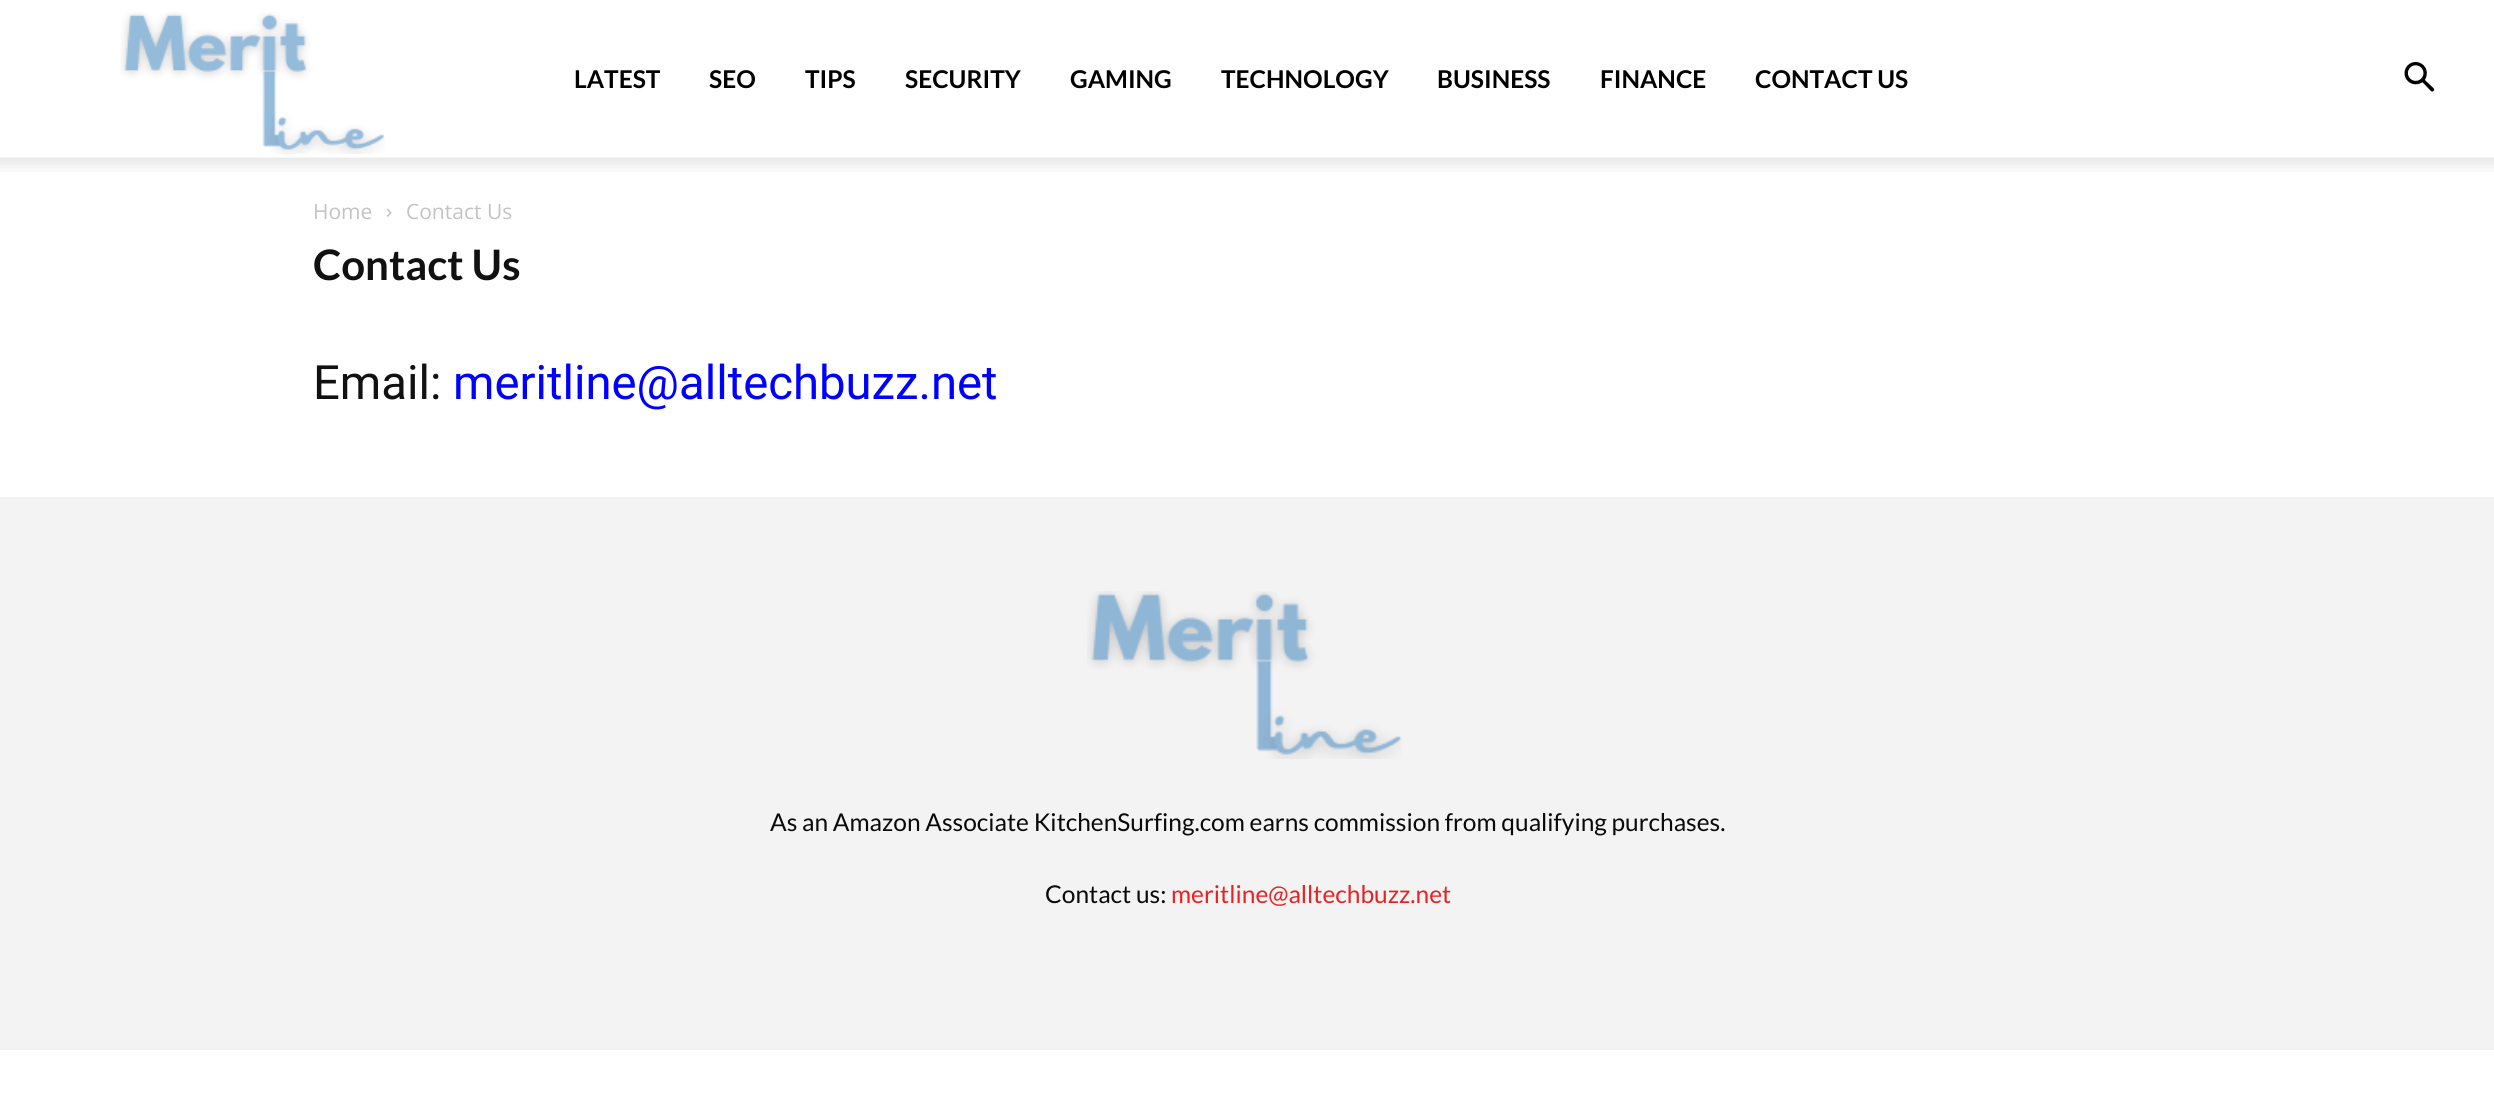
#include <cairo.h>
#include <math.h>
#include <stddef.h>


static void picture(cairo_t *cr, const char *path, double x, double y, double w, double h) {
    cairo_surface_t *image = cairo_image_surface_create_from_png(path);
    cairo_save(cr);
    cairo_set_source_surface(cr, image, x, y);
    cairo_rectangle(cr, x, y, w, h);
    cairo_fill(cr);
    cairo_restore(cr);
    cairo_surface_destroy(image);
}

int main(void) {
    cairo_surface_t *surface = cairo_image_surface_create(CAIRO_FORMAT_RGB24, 2494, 1102);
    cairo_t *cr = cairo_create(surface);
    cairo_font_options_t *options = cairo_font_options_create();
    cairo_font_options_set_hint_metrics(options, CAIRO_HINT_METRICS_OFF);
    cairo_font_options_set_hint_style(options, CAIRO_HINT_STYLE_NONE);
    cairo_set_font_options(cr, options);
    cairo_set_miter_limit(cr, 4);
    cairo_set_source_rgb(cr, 1, 1, 1);
    cairo_paint(cr);
    picture(cr, "img1.png", 120, 12, 265, 142);
    cairo_select_font_face(cr, "Lato", CAIRO_FONT_SLANT_NORMAL, CAIRO_FONT_WEIGHT_BOLD);
    cairo_set_font_size(cr, 24.5);
    cairo_set_source_rgb(cr, 0, 0, 0);
    cairo_move_to(cr, 574, 88);
    cairo_show_text(cr, "LATEST");
    cairo_move_to(cr, 709, 88);
    cairo_show_text(cr, "SEO");
    cairo_move_to(cr, 805, 88);
    cairo_show_text(cr, "TIPS");
    cairo_move_to(cr, 905, 88);
    cairo_show_text(cr, "SECURITY");
    cairo_move_to(cr, 1070, 88);
    cairo_show_text(cr, "GAMING");
    cairo_move_to(cr, 1221, 88);
    cairo_show_text(cr, "TECHNOLOGY");
    cairo_move_to(cr, 1437, 88);
    cairo_show_text(cr, "BUSINESS");
    cairo_move_to(cr, 1600, 88);
    cairo_show_text(cr, "FINANCE");
    cairo_move_to(cr, 1755, 88);
    cairo_show_text(cr, "CONTACT US");
    picture(cr, "img2.png", 2404, 62, 31, 30);
    picture(cr, "img3.png", 0, 157, 2494, 15);
    cairo_select_font_face(cr, "Open Sans", CAIRO_FONT_SLANT_NORMAL, CAIRO_FONT_WEIGHT_NORMAL);
    cairo_set_font_size(cr, 21);
    cairo_set_source_rgb(cr, 0.765, 0.765, 0.765);
    cairo_move_to(cr, 313, 219);
    cairo_show_text(cr, "Home");
    picture(cr, "img4.png", 386, 208, 6, 9);
    cairo_move_to(cr, 406, 219);
    cairo_show_text(cr, "Contact Us");
    cairo_select_font_face(cr, "Lato", CAIRO_FONT_SLANT_NORMAL, CAIRO_FONT_WEIGHT_BOLD);
    cairo_set_font_size(cr, 42);
    cairo_set_source_rgb(cr, 0.067, 0.067, 0.067);
    cairo_move_to(cr, 313, 280);
    cairo_show_text(cr, "Contact Us");
    cairo_select_font_face(cr, "Roboto", CAIRO_FONT_SLANT_NORMAL, CAIRO_FONT_WEIGHT_NORMAL);
    cairo_set_font_size(cr, 47.25);
    cairo_move_to(cr, 313, 399);
    cairo_show_text(cr, "Email:");
    cairo_set_source_rgb(cr, 0, 0, 1);
    cairo_move_to(cr, 453, 399);
    cairo_show_text(cr, "meritline@alltechbuzz.net");
    cairo_set_source_rgb(cr, 0.953, 0.953, 0.953);
    cairo_rectangle(cr, 0, 497, 2494, 553);
    cairo_fill(cr);
    picture(cr, "img5.png", 1087, 591, 315, 168);
    cairo_select_font_face(cr, "Lato", CAIRO_FONT_SLANT_NORMAL, CAIRO_FONT_WEIGHT_NORMAL);
    cairo_set_font_size(cr, 24.5);
    cairo_set_source_rgb(cr, 0.039, 0.039, 0.039);
    cairo_move_to(cr, 770, 831);
    cairo_show_text(cr, "As an Amazon Associate KitchenSurfing.com earns commission from qualifying purchases.");
    cairo_move_to(cr, 1045, 903);
    cairo_show_text(cr, "Contact us:");
    cairo_set_source_rgb(cr, 0.91, 0.133, 0.133);
    cairo_move_to(cr, 1171, 903);
    cairo_show_text(cr, "meritline@alltechbuzz.net");
    cairo_surface_write_to_png(surface, "page.png");
    cairo_font_options_destroy(options);
    cairo_destroy(cr);
    cairo_surface_destroy(surface);
    return 0;
}
